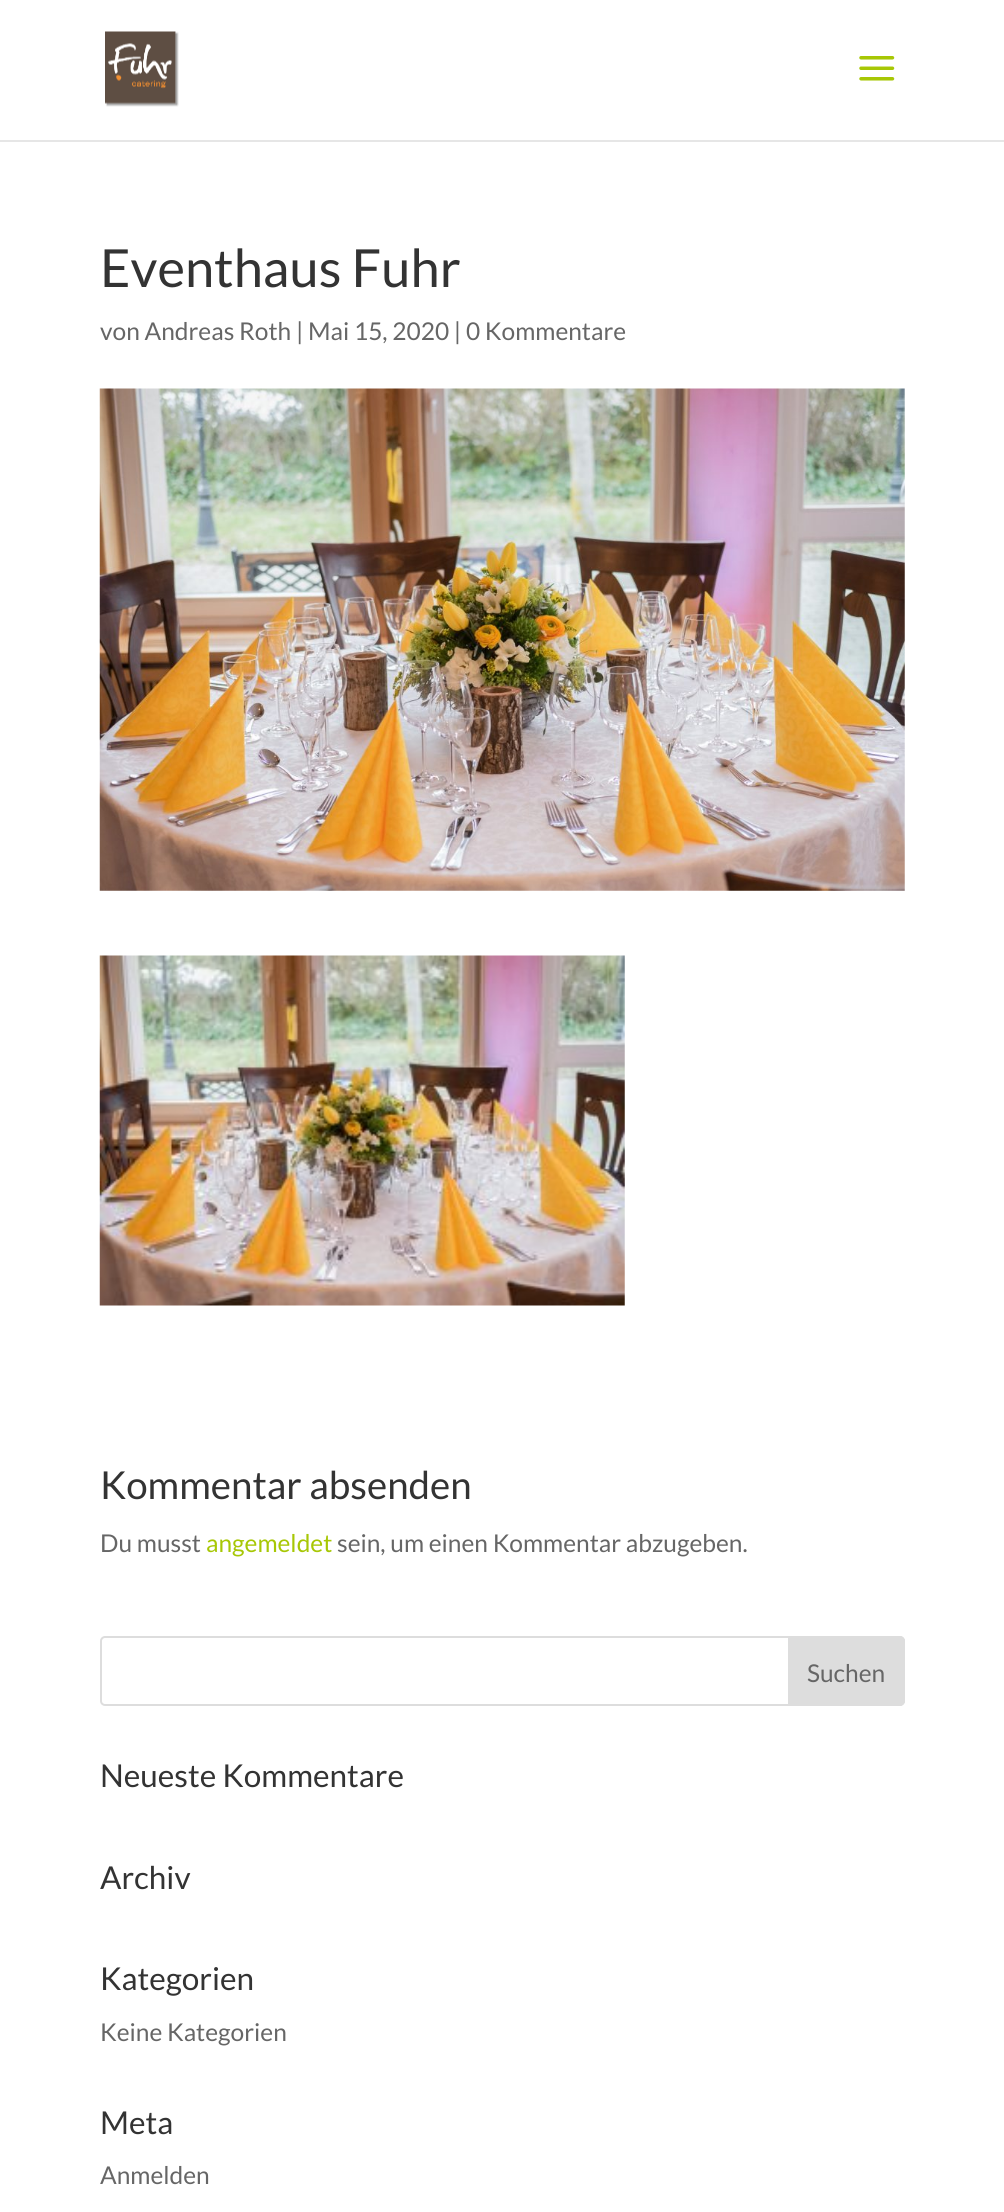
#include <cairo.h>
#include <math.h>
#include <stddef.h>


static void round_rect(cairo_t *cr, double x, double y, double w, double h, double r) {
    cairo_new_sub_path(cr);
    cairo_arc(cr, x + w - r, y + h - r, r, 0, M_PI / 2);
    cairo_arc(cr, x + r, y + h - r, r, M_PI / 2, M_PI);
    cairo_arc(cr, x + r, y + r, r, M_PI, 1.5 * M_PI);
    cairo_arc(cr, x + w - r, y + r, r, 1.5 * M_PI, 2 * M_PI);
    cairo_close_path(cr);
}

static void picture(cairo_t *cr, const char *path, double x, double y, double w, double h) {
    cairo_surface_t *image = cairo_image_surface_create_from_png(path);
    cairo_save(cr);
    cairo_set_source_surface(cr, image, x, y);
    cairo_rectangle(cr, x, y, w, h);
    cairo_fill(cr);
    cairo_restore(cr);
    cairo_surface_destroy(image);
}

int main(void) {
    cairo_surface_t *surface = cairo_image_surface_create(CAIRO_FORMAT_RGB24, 1004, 2212);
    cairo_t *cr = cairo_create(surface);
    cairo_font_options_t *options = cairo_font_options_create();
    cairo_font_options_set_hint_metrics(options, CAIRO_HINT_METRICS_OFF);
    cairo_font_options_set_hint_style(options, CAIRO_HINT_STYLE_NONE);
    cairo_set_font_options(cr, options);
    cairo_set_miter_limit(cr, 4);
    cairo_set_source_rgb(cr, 1, 1, 1);
    cairo_paint(cr);
    cairo_set_source_rgb(cr, 0.902, 0.902, 0.902);
    cairo_new_path(cr);
    cairo_move_to(cr, 0, 140);
    cairo_line_to(cr, 0, 142);
    cairo_line_to(cr, 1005, 142);
    cairo_line_to(cr, 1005, 2);
    cairo_line_to(cr, 1004, 2);
    cairo_line_to(cr, 1004, 140);
    cairo_close_path(cr);
    cairo_fill(cr);
    picture(cr, "img1.png", 105, 31, 74, 76);
    picture(cr, "img2.png", 859, 56, 36, 25);
    cairo_select_font_face(cr, "Lato", CAIRO_FONT_SLANT_NORMAL, CAIRO_FONT_WEIGHT_NORMAL);
    cairo_set_font_size(cr, 52.5);
    cairo_set_source_rgb(cr, 0.2, 0.2, 0.2);
    cairo_move_to(cr, 100, 287);
    cairo_show_text(cr, "Eventhaus Fuhr");
    cairo_set_font_size(cr, 24.5);
    cairo_set_source_rgb(cr, 0.4, 0.4, 0.4);
    cairo_move_to(cr, 100, 340);
    cairo_show_text(cr, "von Andreas Roth | Mai 15, 2020 | 0 Kommentare");
    picture(cr, "img3.png", 99, 388, 806, 503);
    picture(cr, "img4.png", 99, 955, 526, 351);
    cairo_set_font_size(cr, 38.5);
    cairo_set_source_rgb(cr, 0.2, 0.2, 0.2);
    cairo_move_to(cr, 100, 1499);
    cairo_show_text(cr, "Kommentar absenden");
    cairo_set_font_size(cr, 24.5);
    cairo_set_source_rgb(cr, 0.4, 0.4, 0.4);
    cairo_move_to(cr, 100, 1552);
    cairo_show_text(cr, "Du musst");
    cairo_set_source_rgb(cr, 0.655, 0.78, 0.02);
    cairo_move_to(cr, 206, 1552);
    cairo_show_text(cr, "angemeldet");
    cairo_set_source_rgb(cr, 0.4, 0.4, 0.4);
    cairo_move_to(cr, 337, 1552);
    cairo_show_text(cr, "sein, um einen Kommentar abzugeben.");
    round_rect(cr, 101, 1637, 803, 68, 4);
    cairo_set_source_rgb(cr, 0.867, 0.867, 0.867);
    cairo_stroke(cr);
    cairo_new_path(cr);
    cairo_move_to(cr, 789, 1637);
    cairo_line_to(cr, 900, 1637);
    cairo_curve_to(cr, 902, 1637, 904, 1639, 904, 1641);
    cairo_line_to(cr, 904, 1701);
    cairo_curve_to(cr, 904, 1703, 902, 1705, 900, 1705);
    cairo_line_to(cr, 789, 1705);
    cairo_close_path(cr);
    cairo_fill_preserve(cr);
    cairo_stroke(cr);
    cairo_set_source_rgb(cr, 0.4, 0.4, 0.4);
    cairo_move_to(cr, 807, 1682);
    cairo_show_text(cr, "Suchen");
    cairo_set_font_size(cr, 31.5);
    cairo_set_source_rgb(cr, 0.2, 0.2, 0.2);
    cairo_move_to(cr, 100, 1787);
    cairo_show_text(cr, "Neueste Kommentare");
    cairo_move_to(cr, 100, 1889);
    cairo_show_text(cr, "Archiv");
    cairo_move_to(cr, 100, 1990);
    cairo_show_text(cr, "Kategorien");
    cairo_set_font_size(cr, 24.5);
    cairo_set_source_rgb(cr, 0.4, 0.4, 0.4);
    cairo_move_to(cr, 100, 2041);
    cairo_show_text(cr, "Keine Kategorien");
    cairo_set_font_size(cr, 31.5);
    cairo_set_source_rgb(cr, 0.2, 0.2, 0.2);
    cairo_move_to(cr, 100, 2134);
    cairo_show_text(cr, "Meta");
    cairo_set_font_size(cr, 24.5);
    cairo_set_source_rgb(cr, 0.4, 0.4, 0.4);
    cairo_move_to(cr, 100, 2184);
    cairo_show_text(cr, "Anmelden");
    cairo_surface_write_to_png(surface, "page.png");
    cairo_font_options_destroy(options);
    cairo_destroy(cr);
    cairo_surface_destroy(surface);
    return 0;
}
